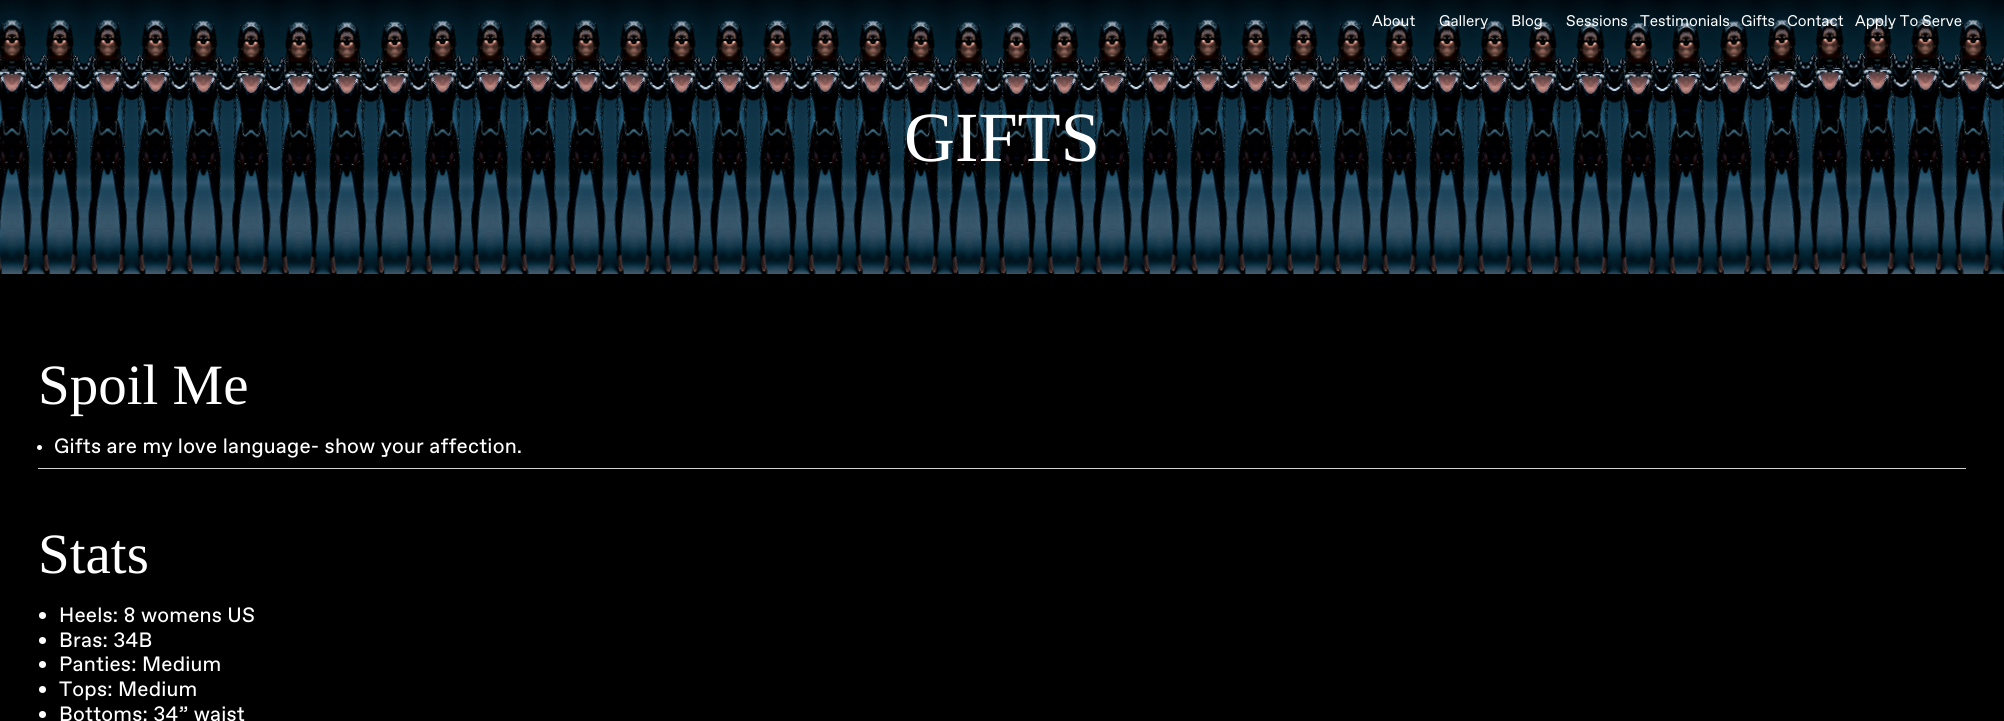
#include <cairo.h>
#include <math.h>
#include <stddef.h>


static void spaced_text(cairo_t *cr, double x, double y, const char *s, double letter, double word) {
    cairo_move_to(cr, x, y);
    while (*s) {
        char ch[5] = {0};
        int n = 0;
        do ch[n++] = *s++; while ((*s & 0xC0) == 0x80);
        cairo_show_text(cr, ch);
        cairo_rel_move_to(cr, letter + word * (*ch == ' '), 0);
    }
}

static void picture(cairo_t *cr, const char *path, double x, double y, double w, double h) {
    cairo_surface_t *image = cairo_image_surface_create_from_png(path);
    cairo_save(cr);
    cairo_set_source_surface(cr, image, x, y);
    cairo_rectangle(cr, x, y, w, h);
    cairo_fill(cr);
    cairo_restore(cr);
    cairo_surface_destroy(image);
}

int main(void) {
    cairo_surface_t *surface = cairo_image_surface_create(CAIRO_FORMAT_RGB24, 2004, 721);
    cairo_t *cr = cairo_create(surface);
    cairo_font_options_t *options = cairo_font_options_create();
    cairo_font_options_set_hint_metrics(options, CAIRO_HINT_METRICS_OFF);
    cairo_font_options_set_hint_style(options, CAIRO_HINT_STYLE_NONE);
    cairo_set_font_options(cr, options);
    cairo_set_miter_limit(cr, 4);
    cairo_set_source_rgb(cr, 0, 0, 0);
    cairo_paint(cr);
    picture(cr, "img1.png", 0, 0, 2004, 274);
    cairo_select_font_face(cr, "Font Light", CAIRO_FONT_SLANT_NORMAL, CAIRO_FONT_WEIGHT_NORMAL);
    cairo_set_font_size(cr, 15.5);
    cairo_set_source_rgb(cr, 1, 1, 1);
    cairo_move_to(cr, 1372, 26);
    cairo_show_text(cr, "About");
    cairo_move_to(cr, 1439, 26);
    cairo_show_text(cr, "Gallery");
    cairo_move_to(cr, 1511, 26);
    cairo_show_text(cr, "Blog");
    cairo_move_to(cr, 1566, 26);
    cairo_show_text(cr, "Sessions");
    cairo_move_to(cr, 1640, 26);
    cairo_show_text(cr, "Testimonials");
    cairo_move_to(cr, 1741, 26);
    cairo_show_text(cr, "Gifts");
    cairo_move_to(cr, 1787, 26);
    cairo_show_text(cr, "Contact");
    cairo_move_to(cr, 1855, 26);
    cairo_show_text(cr, "Apply To Serve");
    cairo_select_font_face(cr, "Liberation Serif", CAIRO_FONT_SLANT_NORMAL, CAIRO_FONT_WEIGHT_NORMAL);
    cairo_set_font_size(cr, 70.5);
    cairo_move_to(cr, 904, 161);
    cairo_show_text(cr, "GIFTS");
    cairo_set_font_size(cr, 57);
    cairo_move_to(cr, 38, 404);
    cairo_show_text(cr, "Spoil Me");
    cairo_new_path(cr);
    cairo_arc(cr, 39.5, 447.5, 2.5, 0, 2 * M_PI);
    cairo_fill(cr);
    cairo_select_font_face(cr, "Font", CAIRO_FONT_SLANT_NORMAL, CAIRO_FONT_WEIGHT_NORMAL);
    cairo_set_font_size(cr, 20.75);
    spaced_text(cr, 54, 453, "Gifts are my love language- show your affection.", 0.2, 0);
    cairo_set_source_rgb(cr, 0.816, 0.816, 0.816);
    cairo_rectangle(cr, 38, 468, 1928, 1);
    cairo_fill(cr);
    cairo_select_font_face(cr, "Liberation Serif", CAIRO_FONT_SLANT_NORMAL, CAIRO_FONT_WEIGHT_NORMAL);
    cairo_set_font_size(cr, 57);
    cairo_set_source_rgb(cr, 1, 1, 1);
    cairo_move_to(cr, 38, 573);
    cairo_show_text(cr, "Stats");
    cairo_new_path(cr);
    cairo_arc(cr, 42.5, 615.5, 3.5, 0, 2 * M_PI);
    cairo_fill(cr);
    cairo_select_font_face(cr, "Font", CAIRO_FONT_SLANT_NORMAL, CAIRO_FONT_WEIGHT_NORMAL);
    cairo_set_font_size(cr, 20.75);
    spaced_text(cr, 59, 622, "Heels: 8 womens US", 0.2, 0);
    cairo_new_path(cr);
    cairo_arc(cr, 42.5, 640.5, 3.5, 0, 2 * M_PI);
    cairo_fill(cr);
    spaced_text(cr, 59, 647, "Bras: 34B", 0.2, 0);
    cairo_new_path(cr);
    cairo_arc(cr, 42.5, 664.5, 3.5, 0, 2 * M_PI);
    cairo_fill(cr);
    spaced_text(cr, 59, 671, "Panties: Medium", 0.2, 0);
    cairo_new_path(cr);
    cairo_arc(cr, 42.5, 689.5, 3.5, 0, 2 * M_PI);
    cairo_fill(cr);
    spaced_text(cr, 59, 696, "Tops: Medium", 0.2, 0);
    cairo_new_path(cr);
    cairo_arc(cr, 42.5, 714.5, 3.5, 0, 2 * M_PI);
    cairo_fill(cr);
    spaced_text(cr, 59, 721, "Bottoms: 34” waist", 0.2, 0);
    cairo_surface_write_to_png(surface, "page.png");
    cairo_font_options_destroy(options);
    cairo_destroy(cr);
    cairo_surface_destroy(surface);
    return 0;
}
